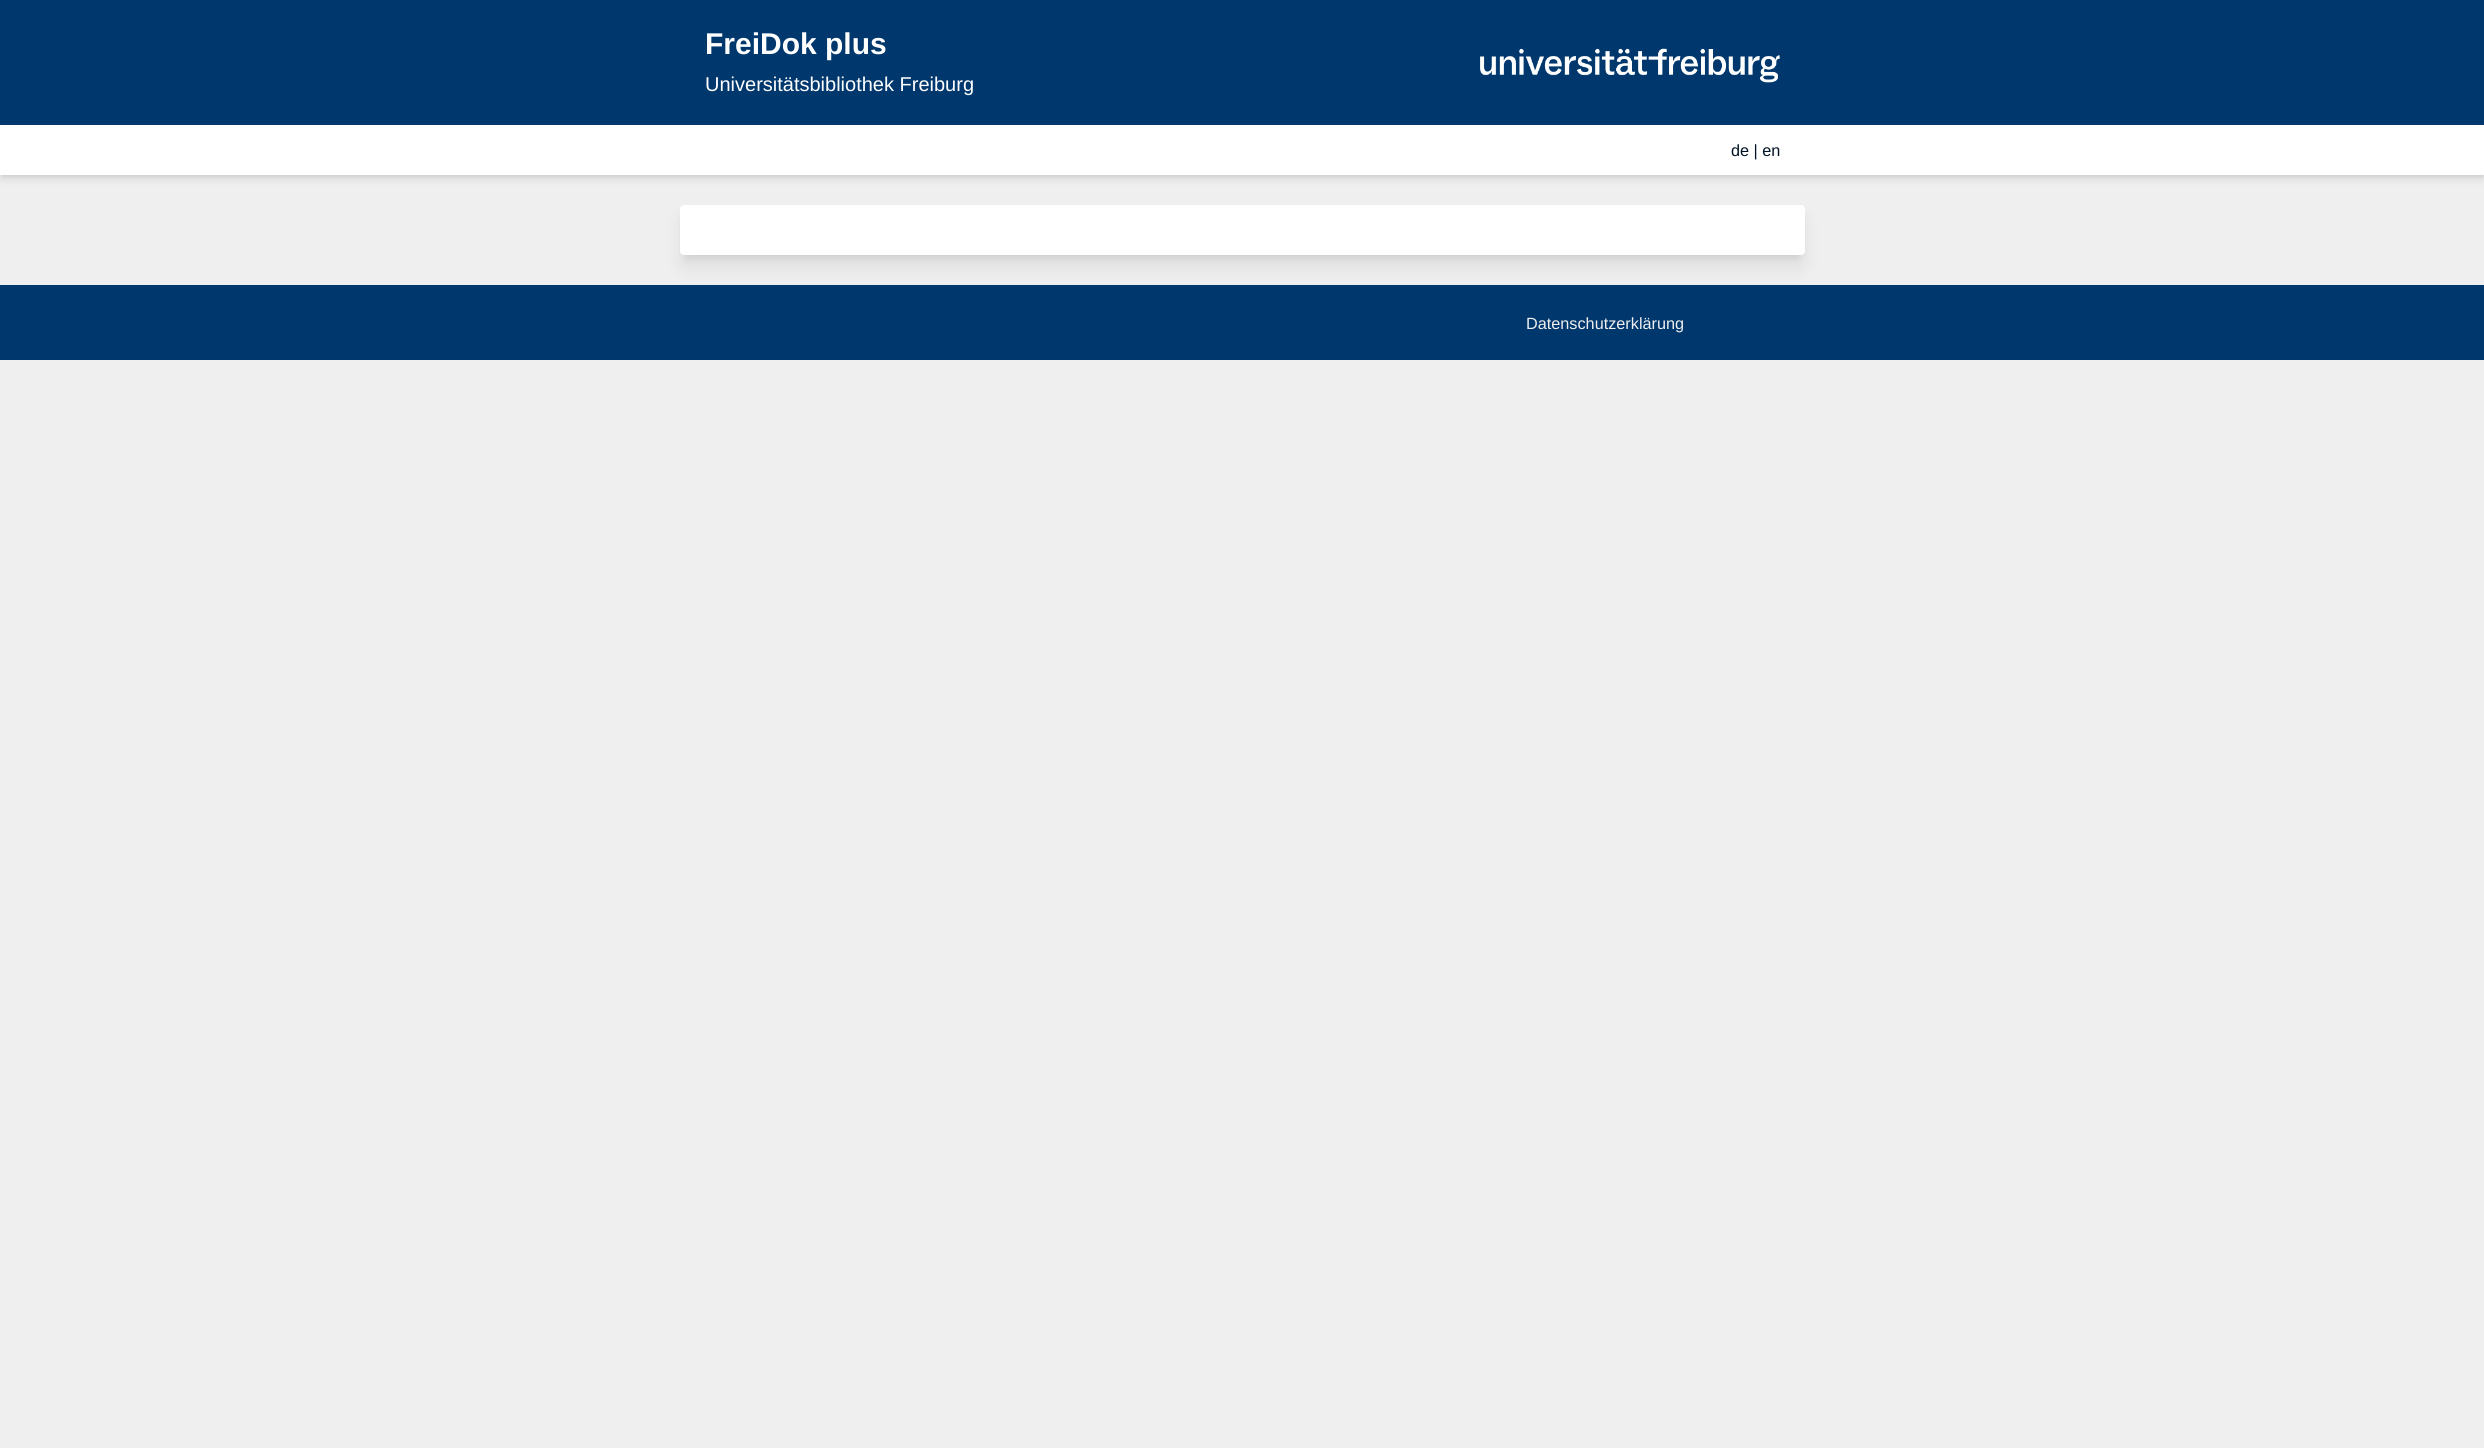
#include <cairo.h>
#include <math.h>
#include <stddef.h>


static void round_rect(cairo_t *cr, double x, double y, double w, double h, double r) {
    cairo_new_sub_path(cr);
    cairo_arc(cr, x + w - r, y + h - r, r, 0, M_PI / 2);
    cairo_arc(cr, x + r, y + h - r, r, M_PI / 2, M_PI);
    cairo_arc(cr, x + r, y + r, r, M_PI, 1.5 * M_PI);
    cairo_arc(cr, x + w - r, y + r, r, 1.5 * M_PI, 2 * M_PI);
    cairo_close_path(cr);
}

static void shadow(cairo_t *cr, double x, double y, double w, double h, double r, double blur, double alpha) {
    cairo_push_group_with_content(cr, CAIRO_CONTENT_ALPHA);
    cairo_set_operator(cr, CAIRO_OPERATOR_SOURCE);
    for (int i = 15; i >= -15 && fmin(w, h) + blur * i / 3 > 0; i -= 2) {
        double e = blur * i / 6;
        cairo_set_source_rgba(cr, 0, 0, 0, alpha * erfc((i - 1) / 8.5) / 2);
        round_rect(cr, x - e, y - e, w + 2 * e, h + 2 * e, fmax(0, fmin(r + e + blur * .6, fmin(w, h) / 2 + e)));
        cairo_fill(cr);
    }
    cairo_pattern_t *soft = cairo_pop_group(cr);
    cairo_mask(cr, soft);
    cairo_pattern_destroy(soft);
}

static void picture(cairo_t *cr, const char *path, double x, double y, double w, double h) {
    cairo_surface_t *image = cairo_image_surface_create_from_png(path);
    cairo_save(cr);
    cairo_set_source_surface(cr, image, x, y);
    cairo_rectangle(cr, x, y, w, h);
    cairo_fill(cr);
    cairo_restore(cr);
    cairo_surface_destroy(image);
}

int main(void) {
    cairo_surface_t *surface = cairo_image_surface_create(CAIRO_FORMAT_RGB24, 2484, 1448);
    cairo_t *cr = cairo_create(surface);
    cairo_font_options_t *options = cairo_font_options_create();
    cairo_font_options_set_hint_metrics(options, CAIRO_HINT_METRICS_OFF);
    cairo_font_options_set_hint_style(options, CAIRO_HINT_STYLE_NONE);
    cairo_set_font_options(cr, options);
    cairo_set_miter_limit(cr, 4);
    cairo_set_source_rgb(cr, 0.937, 0.937, 0.937);
    cairo_paint(cr);
    cairo_set_source_rgb(cr, 0, 0.216, 0.427);
    cairo_rectangle(cr, 0, 0, 2484, 125);
    cairo_fill(cr);
    cairo_select_font_face(cr, "Liberation Sans", CAIRO_FONT_SLANT_NORMAL, CAIRO_FONT_WEIGHT_BOLD);
    cairo_set_font_size(cr, 30);
    cairo_set_source_rgb(cr, 1, 1, 1);
    cairo_move_to(cr, 705, 54);
    cairo_show_text(cr, "FreiDok plus");
    cairo_select_font_face(cr, "Liberation Sans", CAIRO_FONT_SLANT_NORMAL, CAIRO_FONT_WEIGHT_NORMAL);
    cairo_set_font_size(cr, 20);
    cairo_move_to(cr, 705, 91);
    cairo_show_text(cr, "Universitätsbibliothek Freiburg");
    picture(cr, "img1.png", 1480, 48, 300, 35);
    cairo_set_source_rgb(cr, 0, 0, 0);
    shadow(cr, 3, 130, 2480, 45, 0, 2.5, 0.1);
    shadow(cr, 1, 131, 2483, 48, 0, 4, 0.1);
    cairo_set_source_rgb(cr, 1, 1, 1);
    cairo_rectangle(cr, 0, 125, 2484, 50);
    cairo_fill(cr);
    cairo_set_font_size(cr, 16.25);
    cairo_set_source_rgb(cr, 0, 0.071, 0.141);
    cairo_move_to(cr, 1731, 156);
    cairo_show_text(cr, "de | en");
    cairo_set_source_rgb(cr, 0, 0, 0);
    shadow(cr, 685, 215, 1115, 40, 0, 4, 0.1);
    cairo_set_source_rgb(cr, 0, 0.216, 0.427);
    cairo_rectangle(cr, 0, 285, 2484, 75);
    cairo_fill(cr);
    cairo_set_source_rgb(cr, 0, 0, 0);
    shadow(cr, 684, 221, 1117, 43, 0, 9.5, 0.1);
    cairo_set_source_rgb(cr, 1, 1, 1);
    round_rect(cr, 680, 205, 1125, 50, 4);
    cairo_fill(cr);
    cairo_set_source_rgb(cr, 0.937, 0.937, 0.937);
    cairo_move_to(cr, 1526, 329);
    cairo_show_text(cr, "Datenschutzerklärung");
    cairo_surface_write_to_png(surface, "page.png");
    cairo_font_options_destroy(options);
    cairo_destroy(cr);
    cairo_surface_destroy(surface);
    return 0;
}
